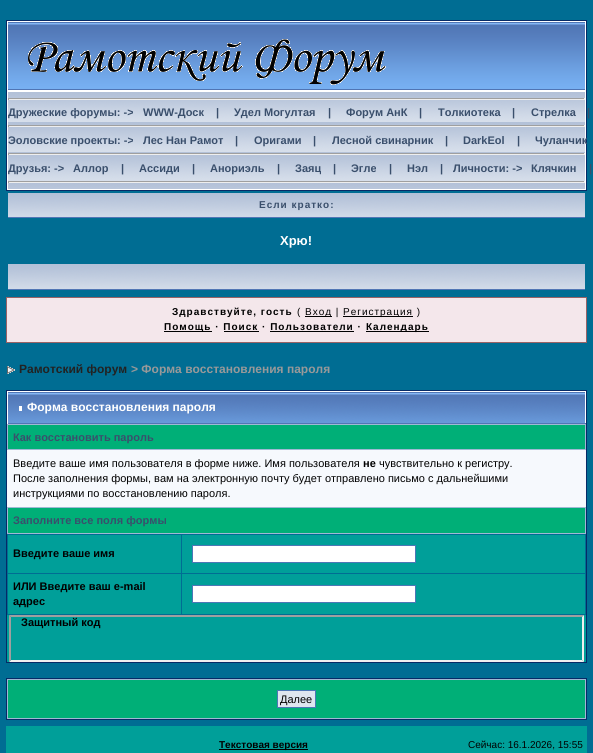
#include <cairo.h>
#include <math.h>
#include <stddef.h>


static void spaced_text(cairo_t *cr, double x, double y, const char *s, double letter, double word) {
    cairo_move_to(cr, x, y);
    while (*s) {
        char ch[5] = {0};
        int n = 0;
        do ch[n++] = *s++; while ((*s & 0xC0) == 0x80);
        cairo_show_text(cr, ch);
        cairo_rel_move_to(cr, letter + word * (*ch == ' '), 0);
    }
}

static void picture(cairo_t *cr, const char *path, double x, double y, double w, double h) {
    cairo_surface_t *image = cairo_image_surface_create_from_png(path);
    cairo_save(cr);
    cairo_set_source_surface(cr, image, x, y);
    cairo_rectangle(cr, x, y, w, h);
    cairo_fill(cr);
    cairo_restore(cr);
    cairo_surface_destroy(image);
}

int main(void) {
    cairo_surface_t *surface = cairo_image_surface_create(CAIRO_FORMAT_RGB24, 593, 753);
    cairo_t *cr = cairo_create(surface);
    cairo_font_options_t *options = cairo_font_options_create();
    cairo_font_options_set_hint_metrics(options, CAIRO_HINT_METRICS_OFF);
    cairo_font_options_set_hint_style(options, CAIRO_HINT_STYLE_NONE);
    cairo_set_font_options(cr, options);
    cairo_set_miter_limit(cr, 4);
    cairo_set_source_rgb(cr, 0, 0.427, 0.576);
    cairo_paint(cr);
    cairo_rectangle(cr, 6.5, 20.5, 580, 170);
    cairo_set_source_rgb(cr, 0.027, 0.165, 0.4);
    cairo_set_line_width(cr, 1);
    cairo_stroke(cr);
    picture(cr, "img1.png", 8, 22, 577, 68);
    cairo_rectangle(cr, 7.5, 21.5, 578, 69);
    cairo_set_source_rgb(cr, 1, 1, 1);
    cairo_stroke(cr);
    picture(cr, "img2.png", 28, 39, 358, 46);
    picture(cr, "img3.png", 8, 92, 577, 97);
    cairo_rectangle(cr, 7.5, 91.5, 578, 98);
    cairo_stroke(cr);
    cairo_set_source_rgb(cr, 0.624, 0.624, 0.624);
    cairo_rectangle(cr, 8, 98, 577, 1);
    cairo_fill(cr);
    cairo_set_source_rgb(cr, 0.933, 0.933, 0.933);
    cairo_rectangle(cr, 584, 98, 1, 2);
    cairo_fill(cr);
    cairo_rectangle(cr, 8, 99, 577, 1);
    cairo_fill(cr);
    cairo_set_source_rgb(cr, 0.624, 0.624, 0.624);
    cairo_rectangle(cr, 8, 98, 1, 2);
    cairo_fill(cr);
    cairo_select_font_face(cr, "Liberation Sans", CAIRO_FONT_SLANT_NORMAL, CAIRO_FONT_WEIGHT_BOLD);
    cairo_set_font_size(cr, 11);
    cairo_set_source_rgb(cr, 0.227, 0.31, 0.424);
    cairo_move_to(cr, 8, 116);
    cairo_show_text(cr, "Дружеские форумы: ->");
    cairo_move_to(cr, 143, 116);
    cairo_show_text(cr, "WWW-Доск");
    cairo_move_to(cr, 216, 116);
    cairo_show_text(cr, "|");
    cairo_move_to(cr, 234, 116);
    cairo_show_text(cr, "Удел Могултая");
    cairo_move_to(cr, 328, 116);
    cairo_show_text(cr, "|");
    cairo_move_to(cr, 346, 116);
    cairo_show_text(cr, "Форум АнК");
    cairo_move_to(cr, 419, 116);
    cairo_show_text(cr, "|");
    cairo_move_to(cr, 438, 116);
    cairo_show_text(cr, "Толкиотека");
    cairo_move_to(cr, 512, 116);
    cairo_show_text(cr, "|");
    cairo_move_to(cr, 531, 116);
    cairo_show_text(cr, "Стрелка");
    cairo_move_to(cr, 587, 116);
    cairo_show_text(cr, "|");
    cairo_set_source_rgb(cr, 0.624, 0.624, 0.624);
    cairo_rectangle(cr, 8, 125, 577, 1);
    cairo_fill(cr);
    cairo_set_source_rgb(cr, 0.933, 0.933, 0.933);
    cairo_rectangle(cr, 584, 125, 1, 2);
    cairo_fill(cr);
    cairo_rectangle(cr, 8, 126, 577, 1);
    cairo_fill(cr);
    cairo_set_source_rgb(cr, 0.624, 0.624, 0.624);
    cairo_rectangle(cr, 8, 125, 1, 2);
    cairo_fill(cr);
    cairo_set_source_rgb(cr, 0.227, 0.31, 0.424);
    cairo_move_to(cr, 8, 144);
    cairo_show_text(cr, "Эоловские проекты: ->");
    cairo_move_to(cr, 143, 144);
    cairo_show_text(cr, "Лес Нан Рамот");
    cairo_move_to(cr, 235, 144);
    cairo_show_text(cr, "|");
    cairo_move_to(cr, 254, 144);
    cairo_show_text(cr, "Оригами");
    cairo_move_to(cr, 313, 144);
    cairo_show_text(cr, "|");
    cairo_move_to(cr, 332, 144);
    cairo_show_text(cr, "Лесной свинарник");
    cairo_move_to(cr, 445, 144);
    cairo_show_text(cr, "|");
    cairo_move_to(cr, 463, 144);
    cairo_show_text(cr, "DarkEol");
    cairo_move_to(cr, 517, 144);
    cairo_show_text(cr, "|");
    cairo_move_to(cr, 535, 144);
    cairo_show_text(cr, "Чуланчик");
    cairo_set_source_rgb(cr, 0.624, 0.624, 0.624);
    cairo_rectangle(cr, 8, 153, 577, 1);
    cairo_fill(cr);
    cairo_set_source_rgb(cr, 0.933, 0.933, 0.933);
    cairo_rectangle(cr, 584, 153, 1, 2);
    cairo_fill(cr);
    cairo_rectangle(cr, 8, 154, 577, 1);
    cairo_fill(cr);
    cairo_set_source_rgb(cr, 0.624, 0.624, 0.624);
    cairo_rectangle(cr, 8, 153, 1, 2);
    cairo_fill(cr);
    cairo_set_source_rgb(cr, 0.227, 0.31, 0.424);
    cairo_move_to(cr, 8, 172);
    cairo_show_text(cr, "Друзья: ->");
    cairo_move_to(cr, 73, 172);
    cairo_show_text(cr, "Аллор");
    cairo_move_to(cr, 121, 172);
    cairo_show_text(cr, "|");
    cairo_move_to(cr, 139, 172);
    cairo_show_text(cr, "Ассиди");
    cairo_move_to(cr, 192, 172);
    cairo_show_text(cr, "|");
    cairo_move_to(cr, 210, 172);
    cairo_show_text(cr, "Анориэль");
    cairo_move_to(cr, 277, 172);
    cairo_show_text(cr, "|");
    cairo_move_to(cr, 295, 172);
    cairo_show_text(cr, "Заяц");
    cairo_move_to(cr, 333, 172);
    cairo_show_text(cr, "|");
    cairo_move_to(cr, 351, 172);
    cairo_show_text(cr, "Эгле");
    cairo_move_to(cr, 389, 172);
    cairo_show_text(cr, "|");
    cairo_move_to(cr, 407, 172);
    cairo_show_text(cr, "Нэл");
    cairo_move_to(cr, 440, 172);
    cairo_show_text(cr, "|");
    cairo_move_to(cr, 453, 172);
    cairo_show_text(cr, "Личности: ->");
    cairo_move_to(cr, 531, 172);
    cairo_show_text(cr, "Клячкин");
    cairo_move_to(cr, 589, 172);
    cairo_show_text(cr, "|");
    cairo_set_source_rgb(cr, 0.624, 0.624, 0.624);
    cairo_rectangle(cr, 8, 181, 577, 1);
    cairo_fill(cr);
    cairo_set_source_rgb(cr, 0.933, 0.933, 0.933);
    cairo_rectangle(cr, 584, 181, 1, 2);
    cairo_fill(cr);
    cairo_rectangle(cr, 8, 182, 577, 1);
    cairo_fill(cr);
    cairo_set_source_rgb(cr, 0.624, 0.624, 0.624);
    cairo_rectangle(cr, 8, 181, 1, 2);
    cairo_fill(cr);
    picture(cr, "img4.png", 8, 193, 577, 24);
    cairo_set_source_rgb(cr, 0.318, 0.463, 0.71);
    cairo_rectangle(cr, 8, 217, 577, 1);
    cairo_fill(cr);
    cairo_set_font_size(cr, 10);
    cairo_set_source_rgb(cr, 0.227, 0.31, 0.424);
    spaced_text(cr, 259, 208, "Если кратко:", 1, 0);
    cairo_set_font_size(cr, 13);
    cairo_set_source_rgb(cr, 1, 1, 1);
    cairo_move_to(cr, 280, 245);
    cairo_show_text(cr, "Хрю!");
    picture(cr, "img5.png", 8, 264, 577, 25);
    cairo_set_source_rgb(cr, 0.318, 0.463, 0.71);
    cairo_rectangle(cr, 8, 289, 577, 1);
    cairo_fill(cr);
    cairo_set_source_rgb(cr, 0.957, 0.906, 0.918);
    cairo_rectangle(cr, 6.5, 297.5, 580, 45);
    cairo_fill_preserve(cr);
    cairo_set_source_rgb(cr, 0.596, 0.384, 0.396);
    cairo_stroke(cr);
    cairo_set_font_size(cr, 10);
    cairo_set_source_rgb(cr, 0, 0, 0);
    spaced_text(cr, 172, 315, "Здравствуйте, гость", 1, 0);
    cairo_select_font_face(cr, "Liberation Sans", CAIRO_FONT_SLANT_NORMAL, CAIRO_FONT_WEIGHT_NORMAL);
    spaced_text(cr, 297, 315, "(", 1, 0);
    cairo_rectangle(cr, 305, 316, 27, 1);
    cairo_fill(cr);
    spaced_text(cr, 305, 315, "Вход |", 1, 0);
    cairo_rectangle(cr, 343, 316, 70, 1);
    cairo_fill(cr);
    spaced_text(cr, 343, 315, "Регистрация )", 1, 0);
    cairo_rectangle(cr, 164, 331, 48, 1);
    cairo_fill(cr);
    cairo_select_font_face(cr, "Liberation Sans", CAIRO_FONT_SLANT_NORMAL, CAIRO_FONT_WEIGHT_BOLD);
    spaced_text(cr, 164, 330, "Помощь · Поиск · Пользователи ·", 1, 0);
    cairo_rectangle(cr, 224, 331, 35, 1);
    cairo_fill(cr);
    cairo_rectangle(cr, 270, 331, 84, 1);
    cairo_fill(cr);
    cairo_rectangle(cr, 366, 331, 63, 1);
    cairo_fill(cr);
    spaced_text(cr, 366, 330, "Календарь", 1, 0);
    picture(cr, "img6.png", 7, 366, 8, 8);
    cairo_set_font_size(cr, 12);
    cairo_set_source_rgb(cr, 0.133, 0.133, 0.133);
    cairo_move_to(cr, 19, 373);
    cairo_show_text(cr, "Рамотский форум");
    cairo_set_source_rgb(cr, 0.6, 0.6, 0.6);
    cairo_move_to(cr, 131, 373);
    cairo_show_text(cr, "> Форма восстановления пароля");
    cairo_rectangle(cr, 6.5, 390.5, 580, 272);
    cairo_set_source_rgb(cr, 0.027, 0.165, 0.4);
    cairo_stroke(cr);
    picture(cr, "img7.png", 8, 392, 577, 31);
    cairo_set_source_rgb(cr, 1, 1, 1);
    cairo_rectangle(cr, 7, 391, 579, 1);
    cairo_fill(cr);
    cairo_rectangle(cr, 585, 391, 1, 33);
    cairo_fill(cr);
    cairo_set_source_rgb(cr, 0.318, 0.463, 0.71);
    cairo_rectangle(cr, 7, 423, 579, 1);
    cairo_fill(cr);
    cairo_set_source_rgb(cr, 1, 1, 1);
    cairo_rectangle(cr, 7, 391, 1, 33);
    cairo_fill(cr);
    cairo_rectangle(cr, 19, 406, 3, 5);
    cairo_fill(cr);
    cairo_move_to(cr, 27, 411);
    cairo_show_text(cr, "Форма восстановления пароля");
    cairo_set_source_rgb(cr, 0, 0.686, 0.467);
    cairo_rectangle(cr, 7.5, 424.5, 578, 25);
    cairo_fill_preserve(cr);
    cairo_set_source_rgb(cr, 0.624, 0.725, 0.831);
    cairo_stroke(cr);
    cairo_set_font_size(cr, 11);
    cairo_set_source_rgb(cr, 0.227, 0.31, 0.424);
    cairo_move_to(cr, 13, 441);
    cairo_show_text(cr, "Как восстановить пароль");
    cairo_set_source_rgb(cr, 0.961, 0.976, 0.992);
    cairo_rectangle(cr, 7, 450, 579, 57);
    cairo_fill(cr);
    cairo_select_font_face(cr, "Liberation Sans", CAIRO_FONT_SLANT_NORMAL, CAIRO_FONT_WEIGHT_NORMAL);
    cairo_set_source_rgb(cr, 0, 0, 0);
    cairo_move_to(cr, 13, 467);
    cairo_show_text(cr, "Введите ваше имя пользователя в форме ниже. Имя пользователя");
    cairo_select_font_face(cr, "Liberation Sans", CAIRO_FONT_SLANT_NORMAL, CAIRO_FONT_WEIGHT_BOLD);
    cairo_move_to(cr, 363, 467);
    cairo_show_text(cr, "не");
    cairo_select_font_face(cr, "Liberation Sans", CAIRO_FONT_SLANT_NORMAL, CAIRO_FONT_WEIGHT_NORMAL);
    cairo_move_to(cr, 379, 467);
    cairo_show_text(cr, "чувствительно к регистру.");
    cairo_move_to(cr, 13, 482);
    cairo_show_text(cr, "После заполнения формы, вам на электронную почту будет отправлено письмо с дальнейшими");
    cairo_move_to(cr, 13, 497);
    cairo_show_text(cr, "инструкциями по восстановлению пароля.");
    cairo_set_source_rgb(cr, 0, 0.686, 0.467);
    cairo_rectangle(cr, 7.5, 507.5, 578, 26);
    cairo_fill_preserve(cr);
    cairo_set_source_rgb(cr, 0.624, 0.725, 0.831);
    cairo_stroke(cr);
    cairo_select_font_face(cr, "Liberation Sans", CAIRO_FONT_SLANT_NORMAL, CAIRO_FONT_WEIGHT_BOLD);
    cairo_set_source_rgb(cr, 0.227, 0.31, 0.424);
    cairo_move_to(cr, 13, 524);
    cairo_show_text(cr, "Заполните все поля формы");
    cairo_set_source_rgb(cr, 0, 0.624, 0.6);
    cairo_rectangle(cr, 8, 535, 173, 38);
    cairo_fill(cr);
    cairo_set_source_rgb(cr, 0, 0, 0);
    cairo_move_to(cr, 13, 557);
    cairo_show_text(cr, "Введите ваше имя");
    cairo_set_source_rgb(cr, 0, 0.624, 0.6);
    cairo_rectangle(cr, 182, 535, 403, 38);
    cairo_fill(cr);
    cairo_set_source_rgb(cr, 1, 1, 1);
    cairo_rectangle(cr, 192.5, 545.5, 223, 17);
    cairo_fill_preserve(cr);
    cairo_set_source_rgb(cr, 0.298, 0.467, 0.714);
    cairo_stroke(cr);
    cairo_set_source_rgb(cr, 0, 0.624, 0.6);
    cairo_rectangle(cr, 8, 574, 173, 40);
    cairo_fill(cr);
    cairo_set_source_rgb(cr, 0, 0, 0);
    cairo_move_to(cr, 13, 590);
    cairo_show_text(cr, "ИЛИ Введите ваш e-mail");
    cairo_move_to(cr, 13, 605);
    cairo_show_text(cr, "адрес");
    cairo_set_source_rgb(cr, 0, 0.624, 0.6);
    cairo_rectangle(cr, 182, 574, 403, 40);
    cairo_fill(cr);
    cairo_set_source_rgb(cr, 1, 1, 1);
    cairo_rectangle(cr, 192.5, 585.5, 223, 17);
    cairo_fill_preserve(cr);
    cairo_set_source_rgb(cr, 0.298, 0.467, 0.714);
    cairo_stroke(cr);
    cairo_set_source_rgb(cr, 0, 0.624, 0.6);
    cairo_rectangle(cr, 7, 615, 579, 47);
    cairo_fill(cr);
    cairo_set_source_rgb(cr, 0.624, 0.624, 0.624);
    cairo_new_path(cr);
    cairo_move_to(cr, 9, 615);
    cairo_line_to(cr, 584, 615);
    cairo_line_to(cr, 582, 617);
    cairo_line_to(cr, 11, 617);
    cairo_close_path(cr);
    cairo_fill(cr);
    cairo_set_source_rgb(cr, 0.937, 0.937, 0.937);
    cairo_new_path(cr);
    cairo_move_to(cr, 584, 615);
    cairo_line_to(cr, 584, 662);
    cairo_line_to(cr, 582, 660);
    cairo_line_to(cr, 582, 617);
    cairo_close_path(cr);
    cairo_fill(cr);
    cairo_new_path(cr);
    cairo_move_to(cr, 584, 662);
    cairo_line_to(cr, 9, 662);
    cairo_line_to(cr, 11, 660);
    cairo_line_to(cr, 582, 660);
    cairo_close_path(cr);
    cairo_fill(cr);
    cairo_set_source_rgb(cr, 0.624, 0.624, 0.624);
    cairo_new_path(cr);
    cairo_move_to(cr, 9, 662);
    cairo_line_to(cr, 9, 615);
    cairo_line_to(cr, 11, 617);
    cairo_line_to(cr, 11, 660);
    cairo_close_path(cr);
    cairo_fill(cr);
    cairo_set_source_rgb(cr, 0, 0, 0);
    cairo_move_to(cr, 21, 626);
    cairo_show_text(cr, "Защитный код");
    cairo_rectangle(cr, 6.5, 678.5, 580, 41);
    cairo_set_source_rgb(cr, 0.027, 0.165, 0.4);
    cairo_stroke(cr);
    cairo_set_source_rgb(cr, 0, 0.686, 0.467);
    cairo_rectangle(cr, 7.5, 679.5, 578, 39);
    cairo_fill_preserve(cr);
    cairo_set_source_rgb(cr, 0.624, 0.725, 0.831);
    cairo_stroke(cr);
    cairo_set_source_rgb(cr, 0.875, 0.902, 0.937);
    cairo_rectangle(cr, 277.5, 690.5, 38, 17);
    cairo_fill_preserve(cr);
    cairo_set_source_rgb(cr, 0.298, 0.467, 0.714);
    cairo_stroke(cr);
    cairo_select_font_face(cr, "Liberation Sans", CAIRO_FONT_SLANT_NORMAL, CAIRO_FONT_WEIGHT_NORMAL);
    cairo_set_source_rgb(cr, 0, 0, 0);
    cairo_move_to(cr, 280, 703);
    cairo_show_text(cr, "Далее");
    cairo_set_source_rgb(cr, 0, 0.624, 0.6);
    cairo_rectangle(cr, 6, 726, 581, 27);
    cairo_fill(cr);
    cairo_set_source_rgb(cr, 0, 0, 0);
    cairo_rectangle(cr, 219, 749, 89, 1);
    cairo_fill(cr);
    cairo_select_font_face(cr, "Liberation Sans", CAIRO_FONT_SLANT_NORMAL, CAIRO_FONT_WEIGHT_BOLD);
    cairo_set_font_size(cr, 10);
    cairo_move_to(cr, 219, 748);
    cairo_show_text(cr, "Текстовая версия");
    cairo_select_font_face(cr, "Liberation Sans", CAIRO_FONT_SLANT_NORMAL, CAIRO_FONT_WEIGHT_NORMAL);
    cairo_move_to(cr, 468, 748);
    cairo_show_text(cr, "Сейчас: 16.1.2026, 15:55");
    cairo_surface_write_to_png(surface, "page.png");
    cairo_font_options_destroy(options);
    cairo_destroy(cr);
    cairo_surface_destroy(surface);
    return 0;
}
